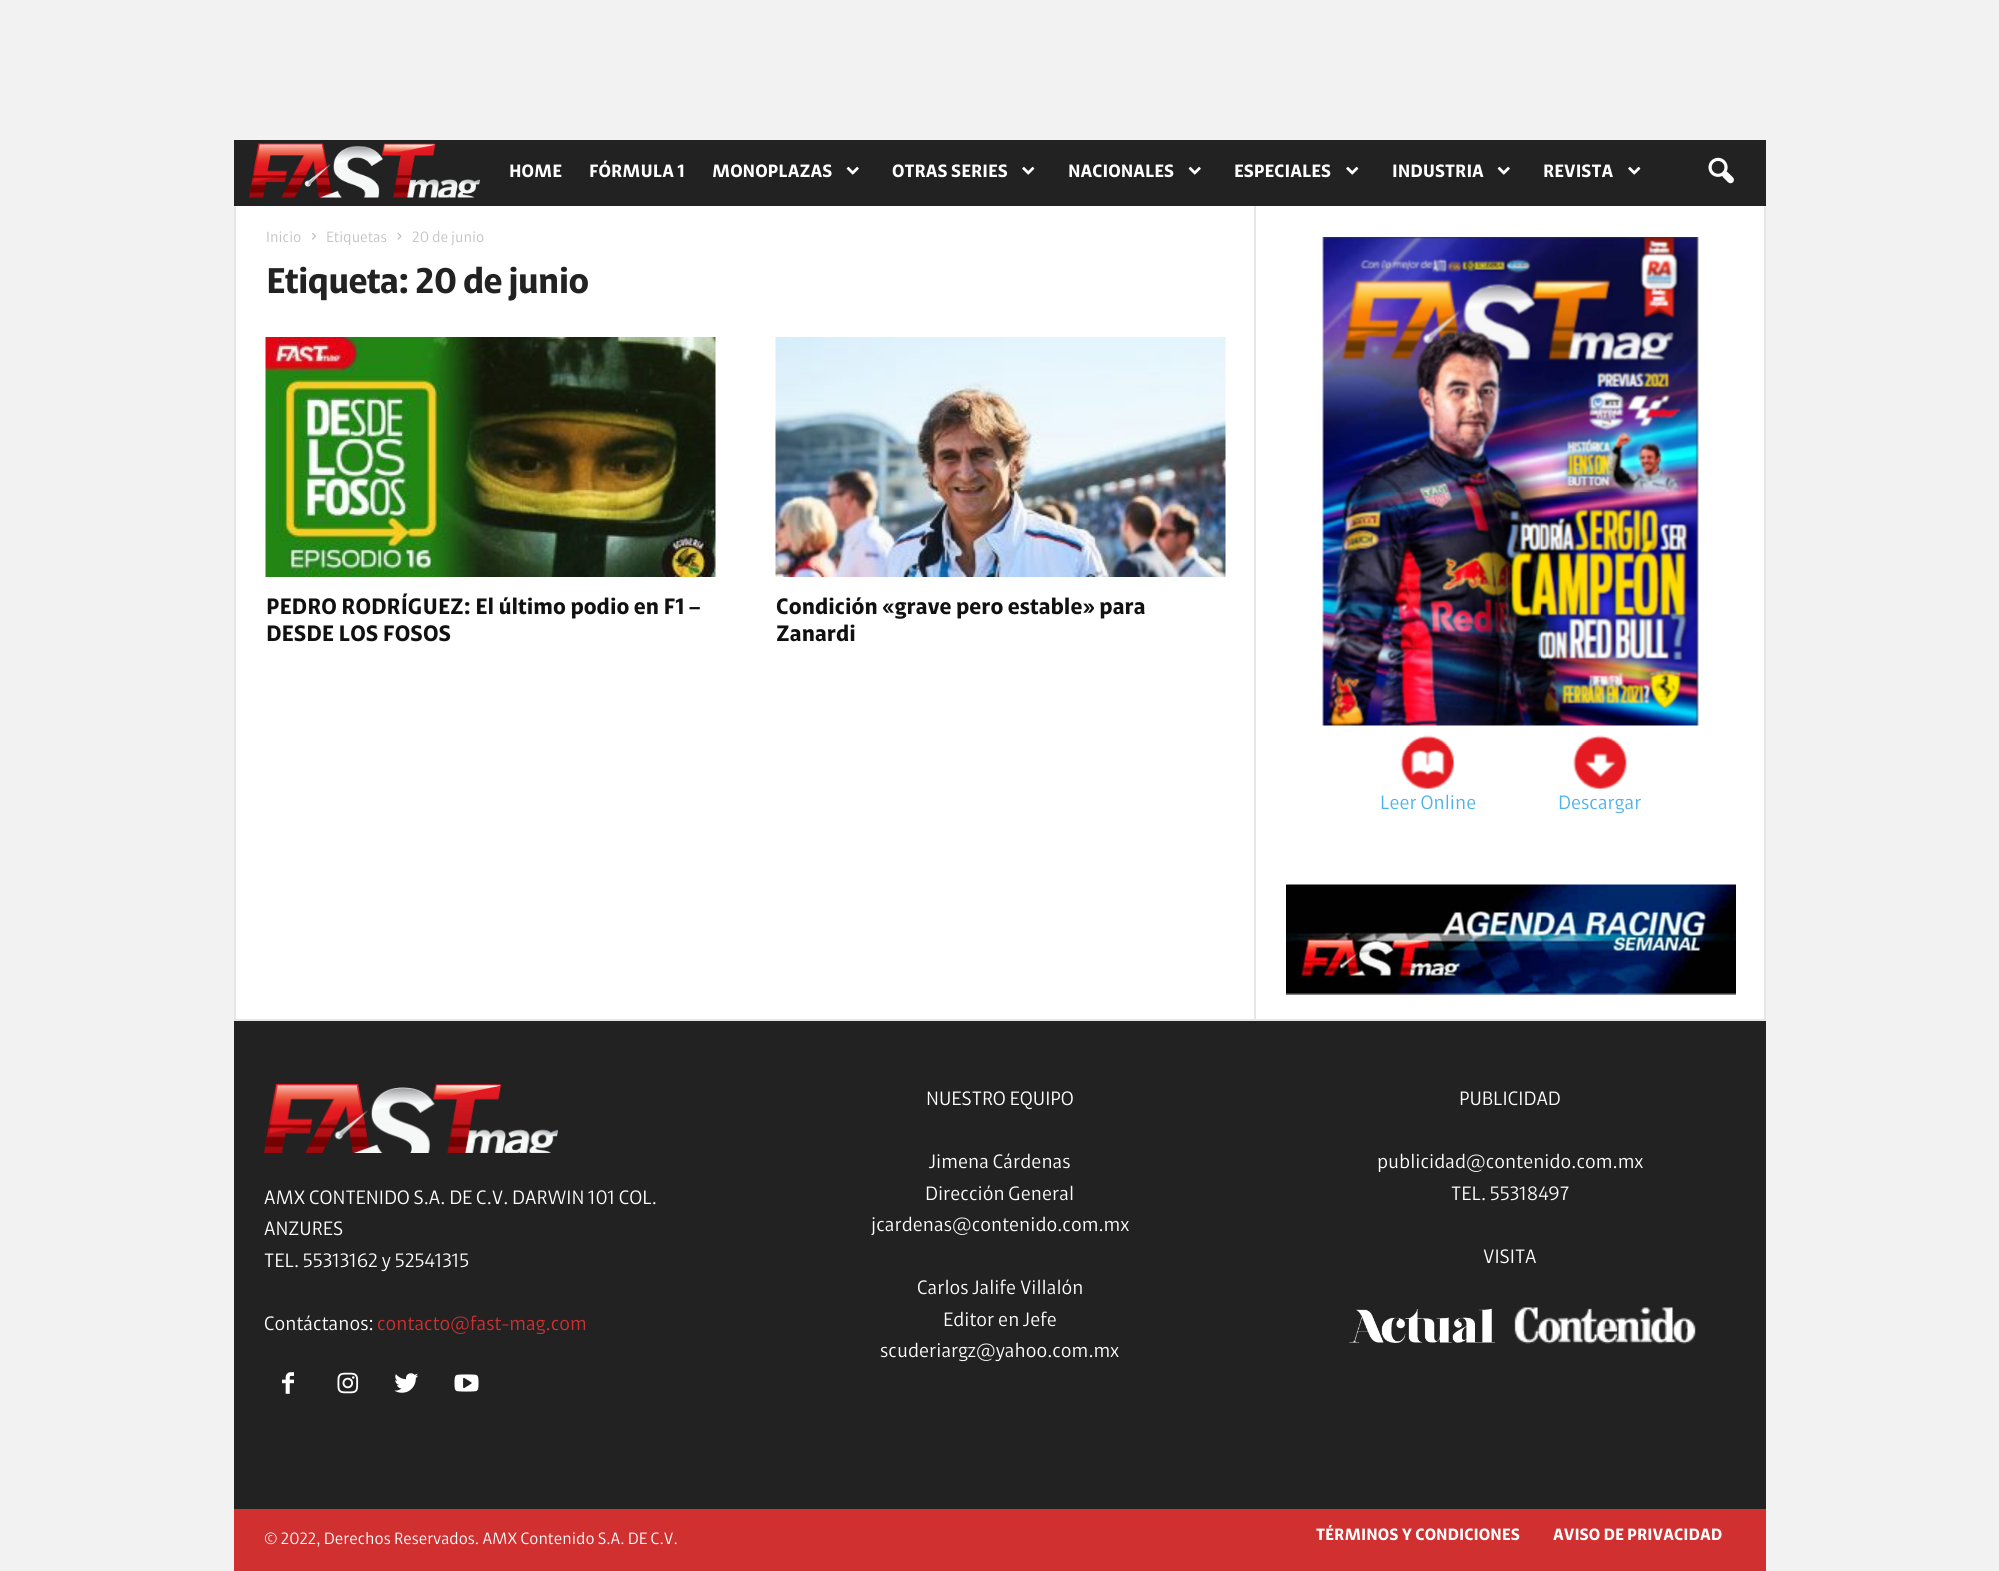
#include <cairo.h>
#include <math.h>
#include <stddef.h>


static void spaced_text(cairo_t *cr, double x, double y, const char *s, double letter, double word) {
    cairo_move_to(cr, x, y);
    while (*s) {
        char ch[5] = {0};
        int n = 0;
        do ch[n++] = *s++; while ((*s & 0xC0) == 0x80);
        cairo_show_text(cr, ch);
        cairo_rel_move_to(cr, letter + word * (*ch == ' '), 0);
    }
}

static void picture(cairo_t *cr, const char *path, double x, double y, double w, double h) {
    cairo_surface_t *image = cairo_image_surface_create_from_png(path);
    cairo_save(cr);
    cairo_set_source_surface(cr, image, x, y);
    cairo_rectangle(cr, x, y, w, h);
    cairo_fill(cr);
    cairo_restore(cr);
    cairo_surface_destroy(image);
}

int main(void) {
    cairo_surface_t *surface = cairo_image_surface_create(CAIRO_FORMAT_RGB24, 1999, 1571);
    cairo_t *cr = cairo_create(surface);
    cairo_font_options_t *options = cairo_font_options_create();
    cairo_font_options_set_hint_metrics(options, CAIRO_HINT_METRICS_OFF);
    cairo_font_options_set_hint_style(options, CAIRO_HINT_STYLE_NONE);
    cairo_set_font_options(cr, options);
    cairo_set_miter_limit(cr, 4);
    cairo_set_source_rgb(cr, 0.949, 0.949, 0.949);
    cairo_paint(cr);
    cairo_set_source_rgb(cr, 0.133, 0.133, 0.133);
    cairo_rectangle(cr, 234, 140, 1532, 66);
    cairo_fill(cr);
    picture(cr, "img1.png", 249, 143, 231, 55);
    cairo_select_font_face(cr, "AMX", CAIRO_FONT_SLANT_NORMAL, CAIRO_FONT_WEIGHT_BOLD);
    cairo_set_font_size(cr, 18);
    cairo_set_source_rgb(cr, 1, 1, 1);
    cairo_move_to(cr, 509, 177);
    cairo_show_text(cr, "HOME");
    cairo_move_to(cr, 589, 177);
    cairo_show_text(cr, "FÓRMULA 1");
    cairo_move_to(cr, 712, 177);
    cairo_show_text(cr, "MONOPLAZAS");
    picture(cr, "img2.png", 846, 166, 13, 9);
    cairo_move_to(cr, 892, 177);
    cairo_show_text(cr, "OTRAS SERIES");
    picture(cr, "img3.png", 1022, 166, 13, 9);
    cairo_move_to(cr, 1068, 177);
    cairo_show_text(cr, "NACIONALES");
    picture(cr, "img2.png", 1188, 166, 13, 9);
    cairo_move_to(cr, 1234, 177);
    cairo_show_text(cr, "ESPECIALES");
    picture(cr, "img3.png", 1346, 166, 13, 9);
    cairo_move_to(cr, 1392, 177);
    cairo_show_text(cr, "INDUSTRIA");
    picture(cr, "img2.png", 1497, 166, 13, 9);
    cairo_move_to(cr, 1543, 177);
    cairo_show_text(cr, "REVISTA");
    picture(cr, "img3.png", 1628, 166, 13, 9);
    picture(cr, "img4.png", 1708, 157, 26, 27);
    cairo_rectangle(cr, 236, 206, 1528, 813);
    cairo_fill(cr);
    cairo_set_source_rgb(cr, 0.902, 0.902, 0.902);
    cairo_rectangle(cr, 234, 1019, 1532, 2);
    cairo_fill(cr);
    cairo_rectangle(cr, 234, 206, 2, 813);
    cairo_fill(cr);
    cairo_select_font_face(cr, "AMX", CAIRO_FONT_SLANT_NORMAL, CAIRO_FONT_WEIGHT_NORMAL);
    cairo_set_font_size(cr, 15);
    cairo_set_source_rgb(cr, 0.765, 0.765, 0.765);
    cairo_move_to(cr, 266, 242);
    cairo_show_text(cr, "Inicio");
    picture(cr, "img5.png", 312, 232, 4, 8);
    cairo_move_to(cr, 326, 242);
    cairo_show_text(cr, "Etiquetas");
    picture(cr, "img6.png", 397, 232, 5, 8);
    cairo_move_to(cr, 412, 242);
    cairo_show_text(cr, "20 de junio");
    cairo_select_font_face(cr, "AMX", CAIRO_FONT_SLANT_NORMAL, CAIRO_FONT_WEIGHT_BOLD);
    cairo_set_font_size(cr, 36);
    cairo_set_source_rgb(cr, 0.133, 0.133, 0.133);
    spaced_text(cr, 266, 293, "Etiqueta: 20 de junio", -0.75, 0);
    picture(cr, "img7.png", 265, 337, 451, 240);
    cairo_set_font_size(cr, 22.5);
    cairo_set_source_rgb(cr, 0.067, 0.067, 0.067);
    cairo_move_to(cr, 266, 614);
    cairo_show_text(cr, "PEDRO RODRÍGUEZ: El último podio en F1 –");
    cairo_move_to(cr, 266, 641);
    cairo_show_text(cr, "DESDE LOS FOSOS");
    picture(cr, "img8.png", 775, 337, 451, 240);
    cairo_move_to(cr, 776, 614);
    cairo_show_text(cr, "Condición «grave pero estable» para");
    cairo_move_to(cr, 776, 641);
    cairo_show_text(cr, "Zanardi");
    cairo_set_source_rgb(cr, 0.902, 0.902, 0.902);
    cairo_rectangle(cr, 1254, 206, 2, 813);
    cairo_fill(cr);
    picture(cr, "img9.png", 1322, 237, 377, 489);
    picture(cr, "img10.png", 1400, 735, 54, 54);
    cairo_select_font_face(cr, "AMX", CAIRO_FONT_SLANT_NORMAL, CAIRO_FONT_WEIGHT_NORMAL);
    cairo_set_font_size(cr, 19.5);
    cairo_set_source_rgb(cr, 0.302, 0.698, 0.925);
    cairo_move_to(cr, 1380, 809);
    cairo_show_text(cr, "Leer Online");
    picture(cr, "img11.png", 1573, 735, 54, 54);
    cairo_move_to(cr, 1558, 809);
    cairo_show_text(cr, "Descargar");
    picture(cr, "img12.png", 1286, 884, 450, 111);
    cairo_set_source_rgb(cr, 0.902, 0.902, 0.902);
    cairo_rectangle(cr, 1764, 206, 2, 813);
    cairo_fill(cr);
    cairo_set_source_rgb(cr, 0.133, 0.133, 0.133);
    cairo_rectangle(cr, 234, 1021, 1532, 488);
    cairo_fill(cr);
    picture(cr, "img13.png", 264, 1084, 294, 69);
    cairo_set_source_rgb(cr, 1, 1, 1);
    cairo_move_to(cr, 264, 1204);
    cairo_show_text(cr, "AMX CONTENIDO S.A. DE C.V. DARWIN 101 COL.");
    cairo_move_to(cr, 264, 1235);
    cairo_show_text(cr, "ANZURES");
    cairo_move_to(cr, 264, 1267);
    cairo_show_text(cr, "TEL. 55313162 y 52541315");
    cairo_move_to(cr, 264, 1330);
    cairo_show_text(cr, "Contáctanos:");
    cairo_set_source_rgb(cr, 0.82, 0.188, 0.188);
    cairo_move_to(cr, 377, 1330);
    cairo_show_text(cr, "contacto@fast-mag.com");
    picture(cr, "img14.png", 282, 1372, 12, 22);
    picture(cr, "img15.png", 337, 1372, 22, 22);
    picture(cr, "img16.png", 394, 1373, 25, 20);
    picture(cr, "img17.png", 454, 1374, 25, 18);
    cairo_set_source_rgb(cr, 1, 1, 1);
    cairo_move_to(cr, 926, 1105);
    cairo_show_text(cr, "NUESTRO EQUIPO");
    cairo_move_to(cr, 929, 1168);
    cairo_show_text(cr, "Jimena Cárdenas");
    cairo_move_to(cr, 925, 1200);
    cairo_show_text(cr, "Dirección General");
    cairo_move_to(cr, 871, 1231);
    cairo_show_text(cr, "jcardenas@contenido.com.mx");
    cairo_move_to(cr, 917, 1294);
    cairo_show_text(cr, "Carlos Jalife Villalón");
    cairo_move_to(cr, 943, 1326);
    cairo_show_text(cr, "Editor en Jefe");
    cairo_move_to(cr, 880, 1357);
    cairo_show_text(cr, "scuderiargz@yahoo.com.mx");
    cairo_move_to(cr, 1459, 1105);
    cairo_show_text(cr, "PUBLICIDAD");
    cairo_move_to(cr, 1377, 1168);
    cairo_show_text(cr, "publicidad@contenido.com.mx");
    cairo_move_to(cr, 1451, 1200);
    cairo_show_text(cr, "TEL. 55318497");
    cairo_move_to(cr, 1483, 1263);
    cairo_show_text(cr, "VISITA");
    picture(cr, "img18.png", 1349, 1308, 146, 35);
    picture(cr, "img19.png", 1514, 1307, 182, 37);
    cairo_set_source_rgb(cr, 0.82, 0.188, 0.188);
    cairo_rectangle(cr, 234, 1509, 1532, 62);
    cairo_fill(cr);
    cairo_set_font_size(cr, 16.5);
    cairo_set_source_rgb(cr, 1, 1, 1);
    cairo_move_to(cr, 264, 1544);
    cairo_show_text(cr, "© 2022, Derechos Reservados. AMX Contenido S.A. DE C.V.");
    cairo_select_font_face(cr, "AMX", CAIRO_FONT_SLANT_NORMAL, CAIRO_FONT_WEIGHT_BOLD);
    cairo_move_to(cr, 1316, 1540);
    cairo_show_text(cr, "TÉRMINOS Y CONDICIONES");
    cairo_move_to(cr, 1553, 1540);
    cairo_show_text(cr, "AVISO DE PRIVACIDAD");
    cairo_surface_write_to_png(surface, "page.png");
    cairo_font_options_destroy(options);
    cairo_destroy(cr);
    cairo_surface_destroy(surface);
    return 0;
}
